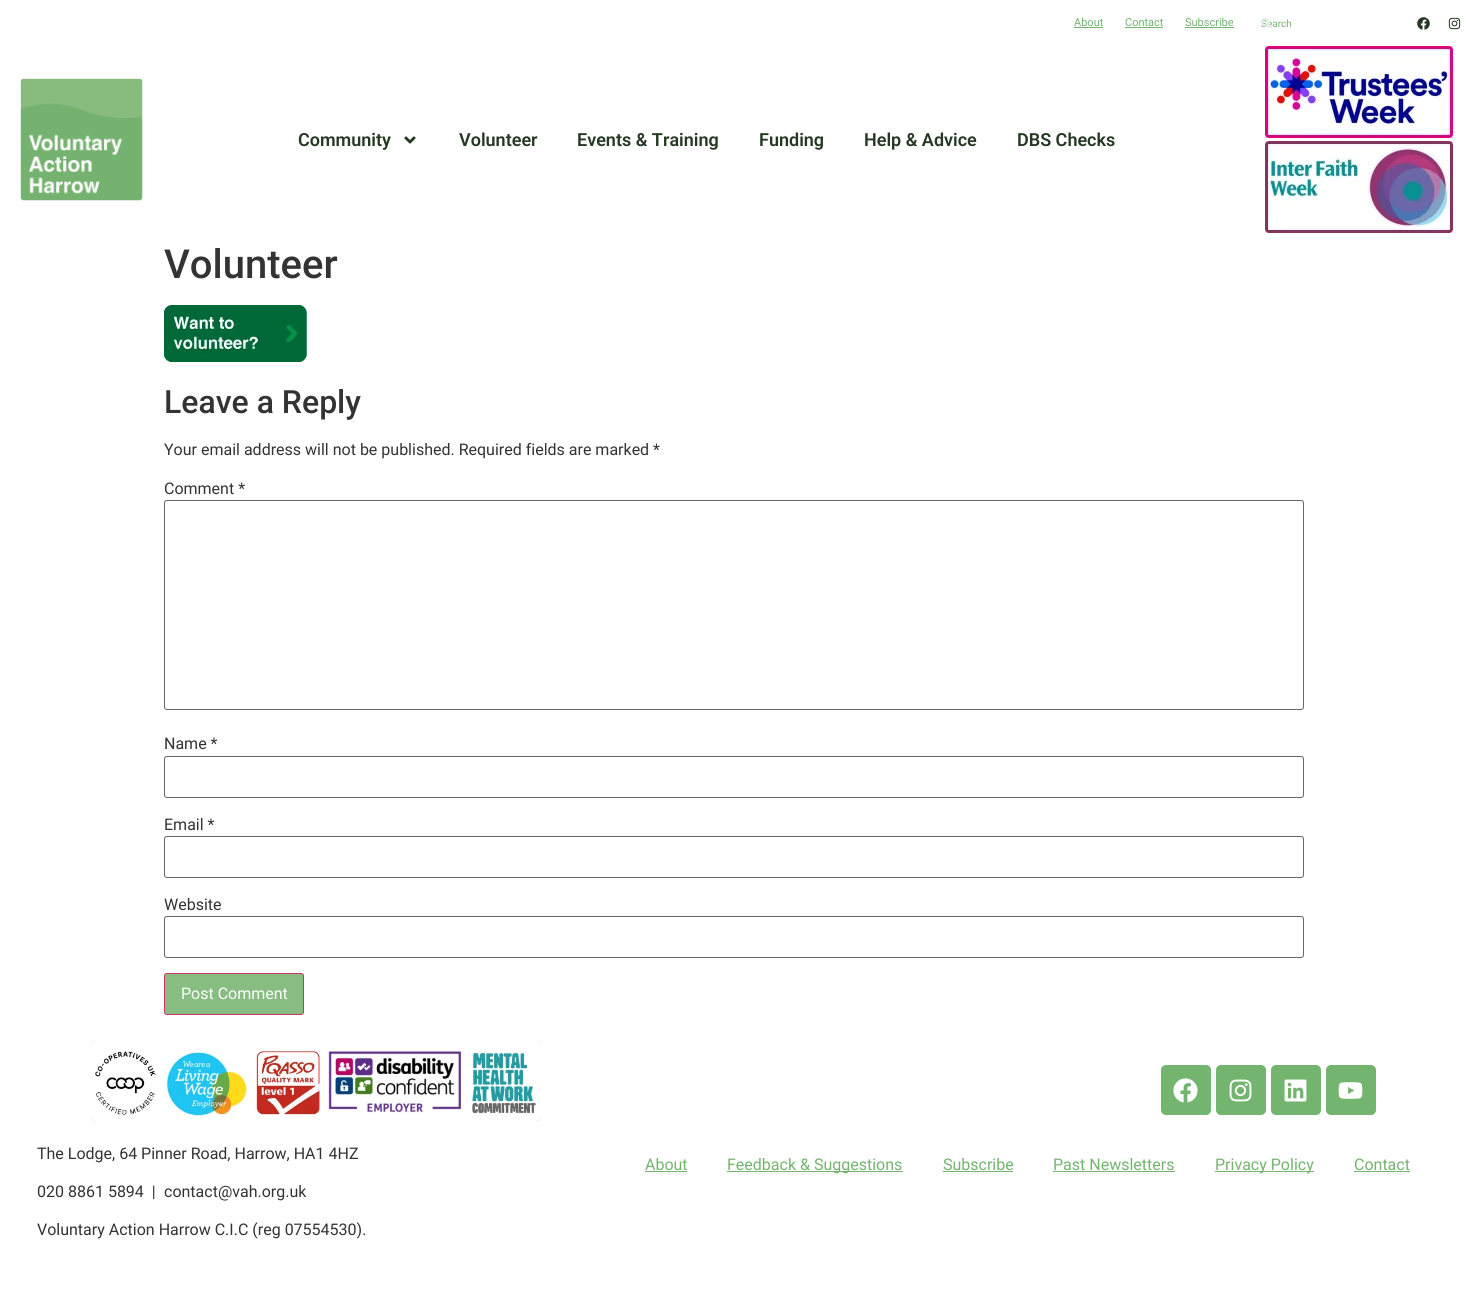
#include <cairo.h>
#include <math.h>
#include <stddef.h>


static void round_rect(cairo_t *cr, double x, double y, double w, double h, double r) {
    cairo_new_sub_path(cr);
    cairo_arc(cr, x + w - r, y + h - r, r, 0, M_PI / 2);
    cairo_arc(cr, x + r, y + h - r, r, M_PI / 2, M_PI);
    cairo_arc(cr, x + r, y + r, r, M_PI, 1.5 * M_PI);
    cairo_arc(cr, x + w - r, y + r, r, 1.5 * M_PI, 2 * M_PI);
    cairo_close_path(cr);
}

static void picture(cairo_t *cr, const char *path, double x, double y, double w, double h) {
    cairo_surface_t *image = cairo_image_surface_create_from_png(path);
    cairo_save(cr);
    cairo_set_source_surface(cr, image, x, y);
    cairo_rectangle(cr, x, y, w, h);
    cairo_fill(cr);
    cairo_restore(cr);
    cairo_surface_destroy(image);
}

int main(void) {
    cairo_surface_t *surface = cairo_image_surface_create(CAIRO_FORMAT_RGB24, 1467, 1315);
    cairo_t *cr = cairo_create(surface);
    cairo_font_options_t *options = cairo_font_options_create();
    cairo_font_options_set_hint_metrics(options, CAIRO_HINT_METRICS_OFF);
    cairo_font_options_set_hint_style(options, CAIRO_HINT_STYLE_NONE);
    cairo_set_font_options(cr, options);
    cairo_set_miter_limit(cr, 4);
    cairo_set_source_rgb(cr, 1, 1, 1);
    cairo_paint(cr);
    cairo_select_font_face(cr, "Roboto", CAIRO_FONT_SLANT_NORMAL, CAIRO_FONT_WEIGHT_NORMAL);
    cairo_set_font_size(cr, 11);
    cairo_set_source_rgb(cr, 0.451, 0.706, 0.431);
    cairo_move_to(cr, 1074, 26);
    cairo_show_text(cr, "About");
    cairo_rectangle(cr, 1074, 27, 29, 1);
    cairo_fill(cr);
    cairo_move_to(cr, 1125, 26);
    cairo_show_text(cr, "Contact");
    cairo_rectangle(cr, 1125, 27, 38, 1);
    cairo_fill(cr);
    cairo_move_to(cr, 1185, 26);
    cairo_show_text(cr, "Subscribe");
    cairo_rectangle(cr, 1185, 27, 49, 1);
    cairo_fill(cr);
    cairo_set_font_size(cr, 10);
    cairo_move_to(cr, 1261, 27);
    cairo_show_text(cr, "Search");
    picture(cr, "img1.png", 1261, 18, 11, 11);
    picture(cr, "img2.png", 1417, 17, 13, 13);
    picture(cr, "img3.png", 1448, 17, 13, 13);
    picture(cr, "img4.png", 20, 78, 123, 123);
    cairo_select_font_face(cr, "Roboto SemiBold", CAIRO_FONT_SLANT_NORMAL, CAIRO_FONT_WEIGHT_NORMAL);
    cairo_set_font_size(cr, 18);
    cairo_set_source_rgb(cr, 0.141, 0.22, 0.133);
    cairo_move_to(cr, 298, 146);
    cairo_show_text(cr, "Community");
    picture(cr, "img5.png", 404, 136, 12, 8);
    cairo_move_to(cr, 459, 146);
    cairo_show_text(cr, "Volunteer");
    cairo_move_to(cr, 577, 146);
    cairo_show_text(cr, "Events & Training");
    cairo_move_to(cr, 759, 146);
    cairo_show_text(cr, "Funding");
    cairo_move_to(cr, 864, 146);
    cairo_show_text(cr, "Help & Advice");
    cairo_move_to(cr, 1017, 146);
    cairo_show_text(cr, "DBS Checks");
    picture(cr, "img6.png", 1265, 46, 188, 92);
    picture(cr, "img7.png", 1265, 141, 188, 92);
    cairo_select_font_face(cr, "Roboto Medium", CAIRO_FONT_SLANT_NORMAL, CAIRO_FONT_WEIGHT_NORMAL);
    cairo_set_font_size(cr, 40);
    cairo_set_source_rgb(cr, 0.2, 0.2, 0.2);
    cairo_move_to(cr, 164, 278);
    cairo_show_text(cr, "Volunteer");
    picture(cr, "img8.png", 164, 305, 143, 57);
    cairo_set_font_size(cr, 32);
    cairo_move_to(cr, 164, 413);
    cairo_show_text(cr, "Leave a Reply");
    cairo_select_font_face(cr, "Roboto", CAIRO_FONT_SLANT_NORMAL, CAIRO_FONT_WEIGHT_NORMAL);
    cairo_set_font_size(cr, 16);
    cairo_move_to(cr, 164, 455);
    cairo_show_text(cr, "Your email address will not be published. Required fields are marked *");
    cairo_move_to(cr, 164, 494);
    cairo_show_text(cr, "Comment *");
    round_rect(cr, 164.5, 500.5, 1139, 209, 2.5);
    cairo_set_source_rgb(cr, 0.4, 0.4, 0.4);
    cairo_set_line_width(cr, 1);
    cairo_stroke(cr);
    cairo_set_source_rgb(cr, 0.2, 0.2, 0.2);
    cairo_move_to(cr, 164, 749);
    cairo_show_text(cr, "Name *");
    round_rect(cr, 164.5, 756.5, 1139, 41, 2.5);
    cairo_set_source_rgb(cr, 0.4, 0.4, 0.4);
    cairo_stroke(cr);
    cairo_set_source_rgb(cr, 0.2, 0.2, 0.2);
    cairo_move_to(cr, 164, 830);
    cairo_show_text(cr, "Email *");
    round_rect(cr, 164.5, 836.5, 1139, 41, 2.5);
    cairo_set_source_rgb(cr, 0.4, 0.4, 0.4);
    cairo_stroke(cr);
    cairo_set_source_rgb(cr, 0.2, 0.2, 0.2);
    cairo_move_to(cr, 164, 910);
    cairo_show_text(cr, "Website");
    round_rect(cr, 164.5, 916.5, 1139, 41, 2.5);
    cairo_set_source_rgb(cr, 0.4, 0.4, 0.4);
    cairo_stroke(cr);
    cairo_set_source_rgb(cr, 0.529, 0.741, 0.506);
    round_rect(cr, 164.5, 973.5, 139, 41, 2.5);
    cairo_fill_preserve(cr);
    cairo_set_source_rgb(cr, 0.8, 0.2, 0.4);
    cairo_stroke(cr);
    cairo_set_source_rgb(cr, 0.992, 1, 0.996);
    cairo_move_to(cr, 181, 999);
    cairo_show_text(cr, "Post Comment");
    picture(cr, "img9.png", 91, 1040, 450, 81);
    cairo_set_source_rgb(cr, 0.451, 0.706, 0.431);
    round_rect(cr, 1161, 1065, 50, 50, 5);
    cairo_fill(cr);
    picture(cr, "img10.png", 1173, 1078, 25, 25);
    round_rect(cr, 1216, 1065, 50, 50, 5);
    cairo_fill(cr);
    picture(cr, "img11.png", 1229, 1079, 23, 23);
    round_rect(cr, 1271, 1065, 50, 50, 5);
    cairo_fill(cr);
    picture(cr, "img12.png", 1284, 1079, 23, 23);
    round_rect(cr, 1326, 1065, 50, 50, 5);
    cairo_fill(cr);
    picture(cr, "img13.png", 1338, 1082, 25, 17);
    cairo_set_source_rgb(cr, 0.2, 0.2, 0.2);
    cairo_move_to(cr, 37, 1159);
    cairo_show_text(cr, "The Lodge, 64 Pinner Road, Harrow, HA1 4HZ");
    cairo_move_to(cr, 37, 1197);
    cairo_show_text(cr, "020 8861 5894  |");
    cairo_move_to(cr, 164, 1197);
    cairo_show_text(cr, "contact@vah.org.uk");
    cairo_move_to(cr, 37, 1235);
    cairo_show_text(cr, "Voluntary Action Harrow C.I.C (reg 07554530).");
    cairo_set_source_rgb(cr, 0.451, 0.706, 0.431);
    cairo_move_to(cr, 645, 1170);
    cairo_show_text(cr, "About");
    cairo_rectangle(cr, 645, 1171, 42, 1);
    cairo_fill(cr);
    cairo_rectangle(cr, 727, 1171, 176, 1);
    cairo_fill(cr);
    cairo_move_to(cr, 727, 1170);
    cairo_show_text(cr, "Feedback & Suggestions");
    cairo_move_to(cr, 943, 1170);
    cairo_show_text(cr, "Subscribe");
    cairo_rectangle(cr, 943, 1171, 70, 1);
    cairo_fill(cr);
    cairo_move_to(cr, 1053, 1170);
    cairo_show_text(cr, "Past Newsletters");
    cairo_rectangle(cr, 1053, 1171, 122, 1);
    cairo_fill(cr);
    cairo_rectangle(cr, 1215, 1171, 99, 1);
    cairo_fill(cr);
    cairo_move_to(cr, 1215, 1170);
    cairo_show_text(cr, "Privacy Policy");
    cairo_move_to(cr, 1354, 1170);
    cairo_show_text(cr, "Contact");
    cairo_rectangle(cr, 1354, 1171, 56, 1);
    cairo_fill(cr);
    cairo_surface_write_to_png(surface, "page.png");
    cairo_font_options_destroy(options);
    cairo_destroy(cr);
    cairo_surface_destroy(surface);
    return 0;
}
